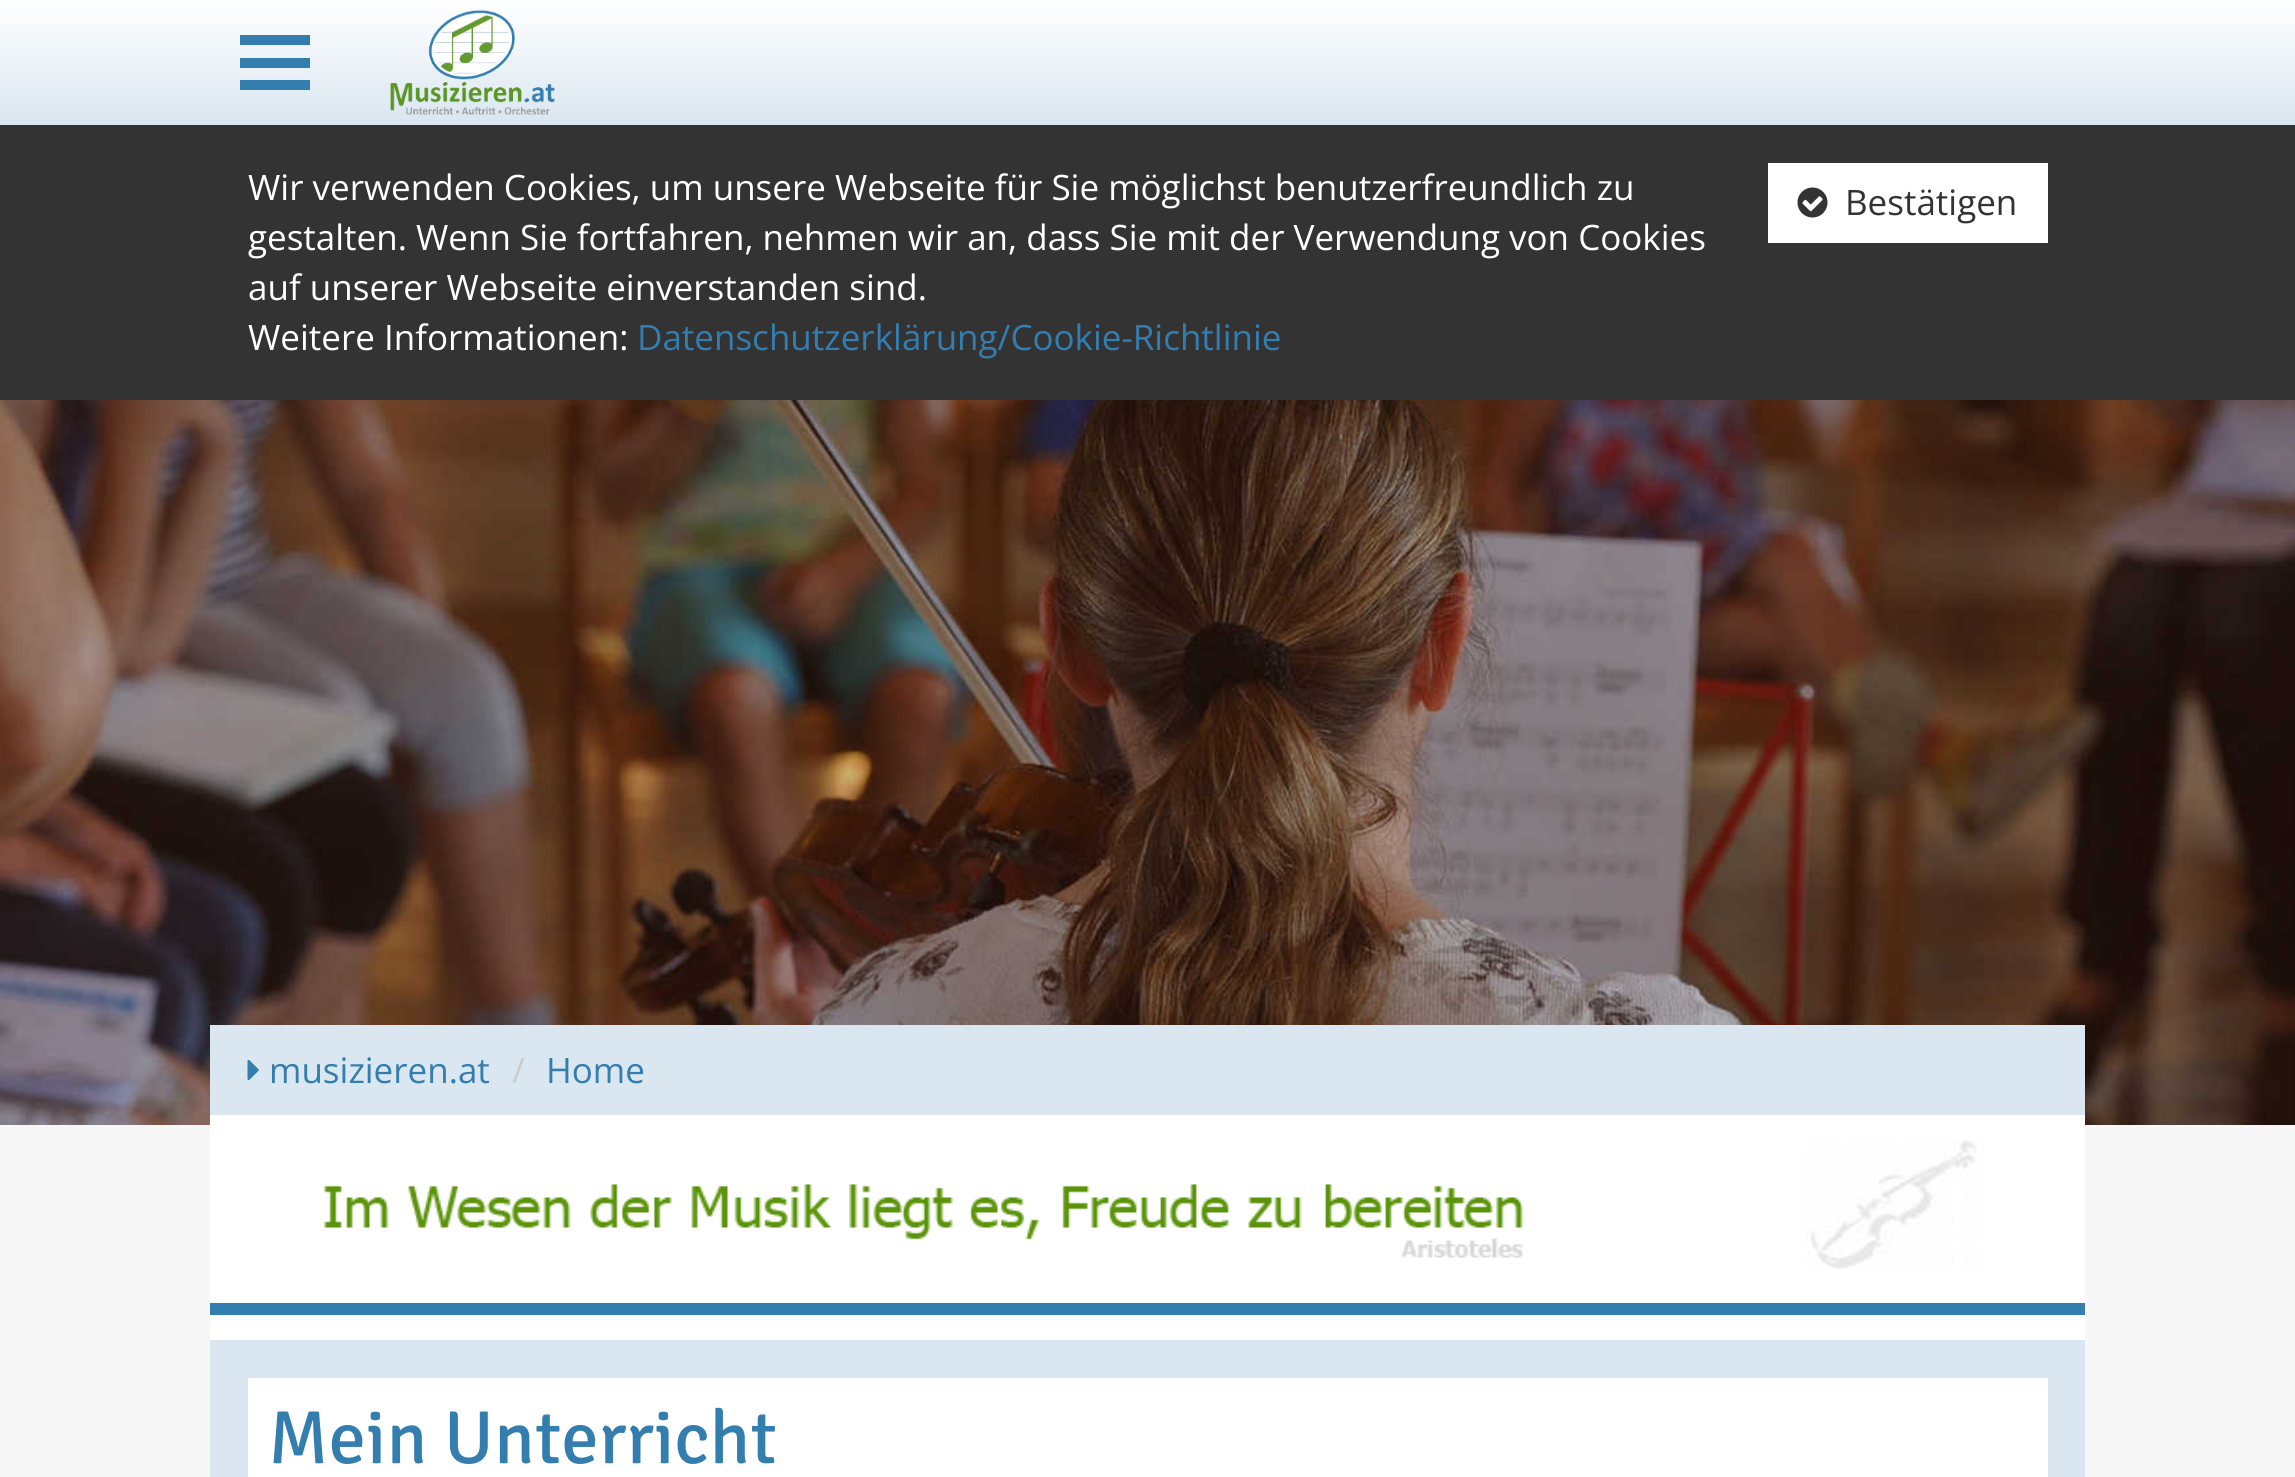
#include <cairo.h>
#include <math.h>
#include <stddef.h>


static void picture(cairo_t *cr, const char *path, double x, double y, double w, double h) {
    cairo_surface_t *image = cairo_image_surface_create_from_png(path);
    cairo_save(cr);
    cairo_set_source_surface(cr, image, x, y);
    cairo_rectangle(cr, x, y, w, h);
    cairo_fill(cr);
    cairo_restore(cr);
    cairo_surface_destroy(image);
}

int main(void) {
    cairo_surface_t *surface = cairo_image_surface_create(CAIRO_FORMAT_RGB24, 2295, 1477);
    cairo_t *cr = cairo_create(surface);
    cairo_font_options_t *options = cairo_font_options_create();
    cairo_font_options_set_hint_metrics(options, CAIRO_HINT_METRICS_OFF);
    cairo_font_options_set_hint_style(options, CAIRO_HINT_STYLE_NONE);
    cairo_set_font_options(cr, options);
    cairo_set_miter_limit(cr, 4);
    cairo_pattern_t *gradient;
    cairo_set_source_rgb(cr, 0.965, 0.965, 0.965);
    cairo_paint(cr);
    gradient = cairo_pattern_create_linear(1148, 0, 1148, 125);
    cairo_pattern_add_color_stop_rgba(gradient, 0, 1, 1, 1, 1);
    cairo_pattern_add_color_stop_rgba(gradient, 1, 0.851, 0.902, 0.941, 1);
    cairo_set_source(cr, gradient);
    cairo_pattern_destroy(gradient);
    cairo_rectangle(cr, 0, 0, 2295, 125);
    cairo_fill(cr);
    cairo_set_source_rgb(cr, 0.2, 0.49, 0.686);
    cairo_rectangle(cr, 240, 35, 70, 10);
    cairo_fill(cr);
    cairo_rectangle(cr, 240, 58, 70, 10);
    cairo_fill(cr);
    cairo_rectangle(cr, 240, 80, 70, 10);
    cairo_fill(cr);
    picture(cr, "img1.png", 390, 9, 165, 106);
    cairo_set_source_rgb(cr, 0.2, 0.2, 0.2);
    cairo_rectangle(cr, 0, 125, 2295, 275);
    cairo_fill(cr);
    cairo_select_font_face(cr, "Open Sans", CAIRO_FONT_SLANT_NORMAL, CAIRO_FONT_WEIGHT_NORMAL);
    cairo_set_font_size(cr, 35);
    cairo_set_source_rgb(cr, 1, 1, 1);
    cairo_move_to(cr, 248, 200);
    cairo_show_text(cr, "Wir verwenden Cookies, um unsere Webseite für Sie möglichst benutzerfreundlich zu");
    cairo_move_to(cr, 248, 250);
    cairo_show_text(cr, "gestalten. Wenn Sie fortfahren, nehmen wir an, dass Sie mit der Verwendung von Cookies");
    cairo_move_to(cr, 248, 300);
    cairo_show_text(cr, "auf unserer Webseite einverstanden sind.");
    cairo_move_to(cr, 248, 350);
    cairo_show_text(cr, "Weitere Informationen:");
    cairo_set_source_rgb(cr, 0.2, 0.49, 0.686);
    cairo_move_to(cr, 637, 350);
    cairo_show_text(cr, "Datenschutzerklärung/Cookie-Richtlinie");
    cairo_set_source_rgb(cr, 1, 1, 1);
    cairo_rectangle(cr, 1768, 163, 280, 80);
    cairo_fill(cr);
    picture(cr, "img2.png", 1797, 187, 31, 31);
    cairo_set_source_rgb(cr, 0.2, 0.2, 0.2);
    cairo_move_to(cr, 1845, 215);
    cairo_show_text(cr, "Bestätigen");
    picture(cr, "img3.png", 0, 400, 2295, 725);
    cairo_set_source_rgb(cr, 1, 1, 1);
    cairo_rectangle(cr, 210, 1115, 1875, 225);
    cairo_fill(cr);
    cairo_set_source_rgb(cr, 0.855, 0.906, 0.941);
    cairo_rectangle(cr, 210, 1025, 1875, 90);
    cairo_fill(cr);
    picture(cr, "img4.png", 247, 1060, 12, 20);
    cairo_set_source_rgb(cr, 0.2, 0.49, 0.686);
    cairo_move_to(cr, 269, 1083);
    cairo_show_text(cr, "musizieren.at");
    cairo_set_source_rgb(cr, 0.8, 0.8, 0.8);
    cairo_move_to(cr, 512, 1083);
    cairo_show_text(cr, "/");
    cairo_set_source_rgb(cr, 0.2, 0.49, 0.686);
    cairo_move_to(cr, 546, 1083);
    cairo_show_text(cr, "Home");
    picture(cr, "img5.png", 324, 1140, 1660, 130);
    cairo_rectangle(cr, 210, 1303, 1875, 12);
    cairo_fill(cr);
    cairo_set_source_rgb(cr, 0.855, 0.906, 0.941);
    cairo_rectangle(cr, 210, 1340, 1875, 137);
    cairo_fill(cr);
    cairo_set_source_rgb(cr, 1, 1, 1);
    cairo_rectangle(cr, 248, 1378, 1800, 99);
    cairo_fill(cr);
    cairo_select_font_face(cr, "Signika", CAIRO_FONT_SLANT_NORMAL, CAIRO_FONT_WEIGHT_NORMAL);
    cairo_set_font_size(cr, 75);
    cairo_set_source_rgb(cr, 0.2, 0.49, 0.686);
    cairo_move_to(cr, 268, 1463);
    cairo_show_text(cr, "Mein Unterricht");
    cairo_surface_write_to_png(surface, "page.png");
    cairo_font_options_destroy(options);
    cairo_destroy(cr);
    cairo_surface_destroy(surface);
    return 0;
}
